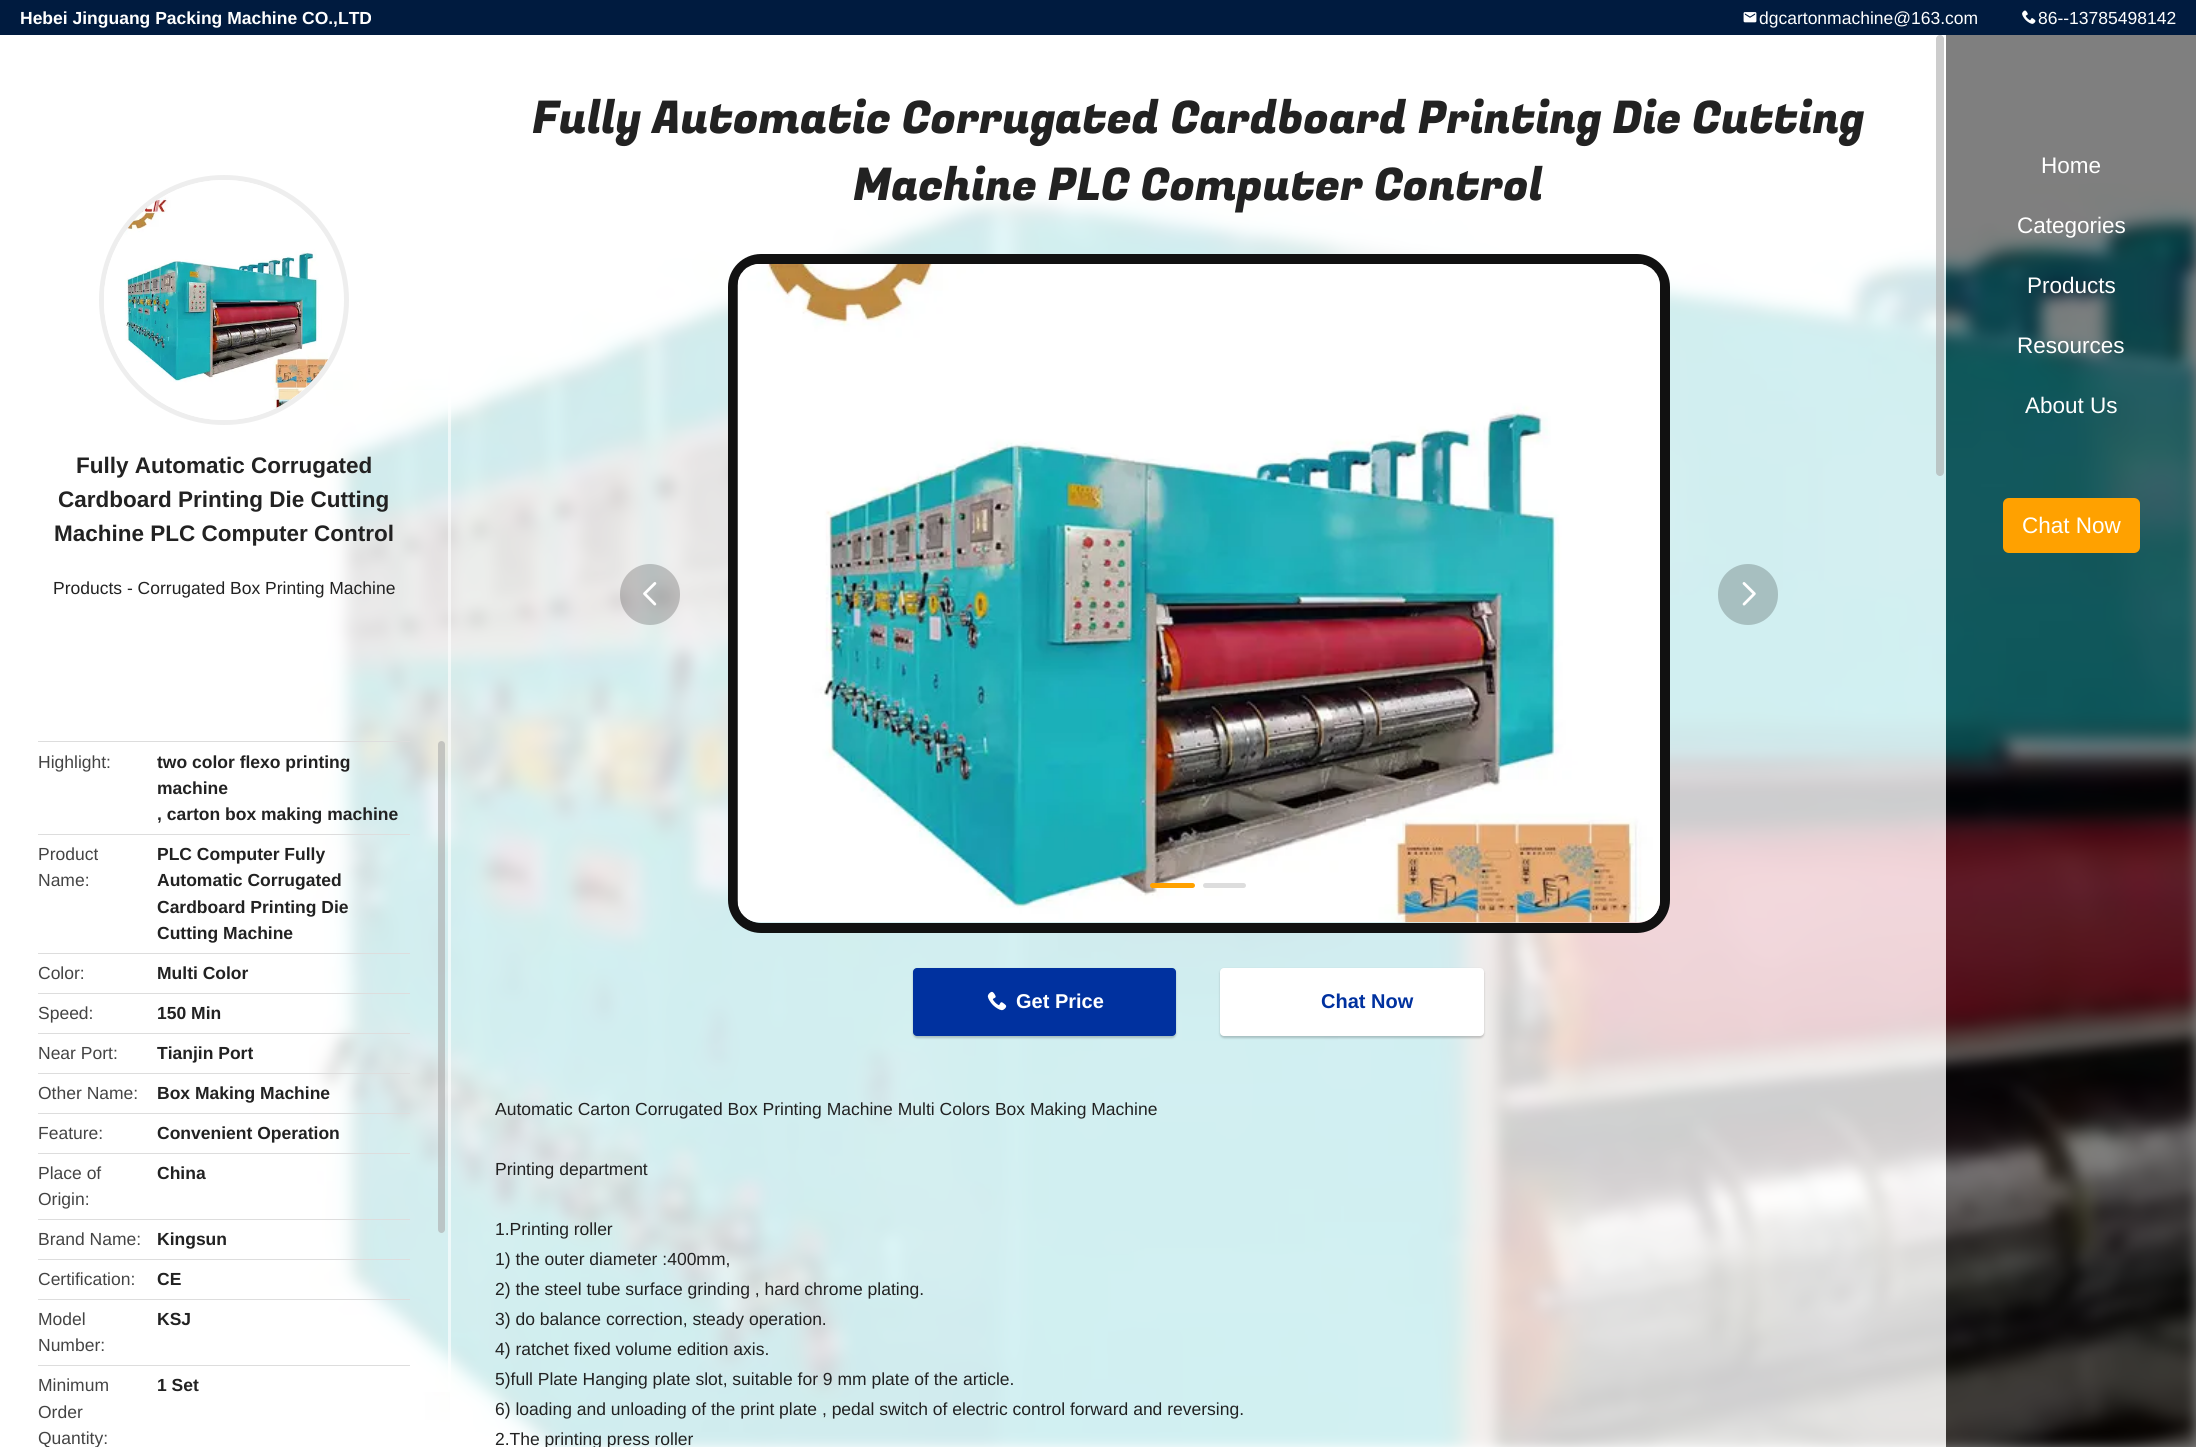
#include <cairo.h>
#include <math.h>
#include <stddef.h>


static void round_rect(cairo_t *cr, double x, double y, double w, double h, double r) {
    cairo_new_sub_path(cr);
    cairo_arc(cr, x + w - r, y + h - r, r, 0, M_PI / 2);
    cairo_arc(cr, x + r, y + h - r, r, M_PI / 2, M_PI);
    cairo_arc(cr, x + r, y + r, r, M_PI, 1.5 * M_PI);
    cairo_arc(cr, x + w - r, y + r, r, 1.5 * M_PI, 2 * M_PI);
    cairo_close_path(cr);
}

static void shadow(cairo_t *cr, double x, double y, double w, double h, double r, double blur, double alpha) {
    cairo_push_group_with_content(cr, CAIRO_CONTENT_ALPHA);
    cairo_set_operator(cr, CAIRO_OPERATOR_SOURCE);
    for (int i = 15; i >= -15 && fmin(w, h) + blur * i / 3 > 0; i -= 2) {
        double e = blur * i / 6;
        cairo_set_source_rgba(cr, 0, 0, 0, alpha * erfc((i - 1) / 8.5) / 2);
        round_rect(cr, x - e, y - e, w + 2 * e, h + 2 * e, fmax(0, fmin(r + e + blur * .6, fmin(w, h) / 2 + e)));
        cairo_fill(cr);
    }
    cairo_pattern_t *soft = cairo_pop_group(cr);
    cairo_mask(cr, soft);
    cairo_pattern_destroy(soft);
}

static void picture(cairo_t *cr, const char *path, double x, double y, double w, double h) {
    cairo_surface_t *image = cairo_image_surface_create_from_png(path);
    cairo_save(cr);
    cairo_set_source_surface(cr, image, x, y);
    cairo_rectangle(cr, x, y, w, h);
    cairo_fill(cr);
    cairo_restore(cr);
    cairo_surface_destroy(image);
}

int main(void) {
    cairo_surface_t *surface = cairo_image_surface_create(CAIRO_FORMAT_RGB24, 2196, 1447);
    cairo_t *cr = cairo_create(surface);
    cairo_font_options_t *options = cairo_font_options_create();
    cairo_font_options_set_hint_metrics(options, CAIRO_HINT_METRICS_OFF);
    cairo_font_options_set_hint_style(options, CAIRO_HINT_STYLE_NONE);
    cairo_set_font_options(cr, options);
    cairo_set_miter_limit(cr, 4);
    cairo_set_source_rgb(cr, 1, 1, 1);
    cairo_paint(cr);
    cairo_set_source_rgb(cr, 0, 0.106, 0.247);
    cairo_rectangle(cr, 0, 0, 2196, 35);
    cairo_fill(cr);
    cairo_select_font_face(cr, "Liberation Sans", CAIRO_FONT_SLANT_NORMAL, CAIRO_FONT_WEIGHT_BOLD);
    cairo_set_font_size(cr, 17.5);
    cairo_set_source_rgb(cr, 1, 1, 1);
    cairo_move_to(cr, 20, 24);
    cairo_show_text(cr, "Hebei Jinguang Packing Machine CO.,LTD");
    picture(cr, "img1.png", 1743, 12, 14, 11);
    cairo_select_font_face(cr, "Liberation Sans", CAIRO_FONT_SLANT_NORMAL, CAIRO_FONT_WEIGHT_NORMAL);
    cairo_move_to(cr, 1759, 24);
    cairo_show_text(cr, "dgcartonmachine@163.com");
    picture(cr, "img2.png", 2022, 10, 14, 14);
    cairo_move_to(cr, 2038, 24);
    cairo_show_text(cr, "86--13785498142");
    picture(cr, "img8.png", 309, 183, 1887, 1264);
    cairo_set_source_rgba(cr, 1, 1, 1, 0.8);
    cairo_rectangle(cr, 309, 390, 141, 1002);
    cairo_fill(cr);
    cairo_set_source_rgba(cr, 1, 1, 1, 0.6);
    cairo_rectangle(cr, 448, 394, 3, 996);
    cairo_fill(cr);
    cairo_set_source_rgba(cr, 1, 1, 1, 0.8);
    cairo_rectangle(cr, 450, 183, 1496, 1264);
    cairo_fill(cr);
    cairo_select_font_face(cr, "Fugaz One", CAIRO_FONT_SLANT_NORMAL, CAIRO_FONT_WEIGHT_NORMAL);
    cairo_set_font_size(cr, 45);
    cairo_set_source_rgb(cr, 0.133, 0.133, 0.133);
    cairo_move_to(cr, 532, 133);
    cairo_show_text(cr, "Fully Automatic Corrugated Cardboard Printing Die Cutting");
    cairo_move_to(cr, 853, 200);
    cairo_show_text(cr, "Machine PLC Computer Control");
    cairo_set_source_rgba(cr, 0.667, 0.667, 0.667, 0.6);
    round_rect(cr, 1936, 35, 8, 441, 4);
    cairo_fill(cr);
    round_rect(cr, 733, 259, 932, 669, 28);
    cairo_set_source_rgb(cr, 0.067, 0.067, 0.067);
    cairo_set_line_width(cr, 10);
    cairo_stroke(cr);
    picture(cr, "img3.png", 737, 264, 923, 659);
    cairo_set_source_rgba(cr, 0, 0, 0, 0.2);
    round_rect(cr, 620, 564, 60, 61, 30);
    cairo_fill(cr);
    picture(cr, "img4.png", 643, 582, 14, 24);
    cairo_set_source_rgb(cr, 0.655, 0.749, 0.753);
    round_rect(cr, 1718, 564, 60, 61, 30);
    cairo_fill(cr);
    picture(cr, "img5.png", 1742, 582, 14, 24);
    cairo_set_source_rgb(cr, 1, 0.631, 0);
    round_rect(cr, 1150, 883, 45, 5, 2.5);
    cairo_fill(cr);
    cairo_set_source_rgb(cr, 0.867, 0.867, 0.867);
    round_rect(cr, 1203, 883, 43, 5, 2.5);
    cairo_fill(cr);
    cairo_set_source_rgb(cr, 0, 0, 0);
    shadow(cr, 913, 969, 263, 69, 4, 1, 0.2);
    cairo_set_source_rgb(cr, 0, 0.192, 0.624);
    round_rect(cr, 913, 968, 263, 68, 4);
    cairo_fill(cr);
    picture(cr, "img6.png", 987, 991, 20, 20);
    cairo_select_font_face(cr, "Liberation Sans", CAIRO_FONT_SLANT_NORMAL, CAIRO_FONT_WEIGHT_BOLD);
    cairo_set_font_size(cr, 20);
    cairo_set_source_rgb(cr, 1, 1, 1);
    cairo_move_to(cr, 1016, 1008);
    cairo_show_text(cr, "Get Price");
    cairo_set_source_rgb(cr, 0, 0, 0);
    shadow(cr, 1220, 969, 264, 69, 4, 1, 0.2);
    cairo_set_source_rgb(cr, 1, 1, 1);
    round_rect(cr, 1220, 968, 264, 68, 4);
    cairo_fill(cr);
    cairo_set_source_rgb(cr, 0, 0.192, 0.624);
    cairo_move_to(cr, 1321, 1008);
    cairo_show_text(cr, "Chat Now");
    cairo_select_font_face(cr, "Liberation Sans", CAIRO_FONT_SLANT_NORMAL, CAIRO_FONT_WEIGHT_NORMAL);
    cairo_set_font_size(cr, 17.5);
    cairo_set_source_rgb(cr, 0.133, 0.133, 0.133);
    cairo_move_to(cr, 495, 1115);
    cairo_show_text(cr, "Automatic Carton Corrugated Box Printing Machine Multi Colors Box Making Machine");
    cairo_move_to(cr, 495, 1175);
    cairo_show_text(cr, "Printing department");
    cairo_move_to(cr, 495, 1235);
    cairo_show_text(cr, "1.Printing roller");
    cairo_move_to(cr, 495, 1265);
    cairo_show_text(cr, "1) the outer diameter :400mm,");
    cairo_move_to(cr, 495, 1295);
    cairo_show_text(cr, "2) the steel tube surface grinding , hard chrome plating.");
    cairo_move_to(cr, 495, 1325);
    cairo_show_text(cr, "3) do balance correction, steady operation.");
    cairo_move_to(cr, 495, 1355);
    cairo_show_text(cr, "4) ratchet fixed volume edition axis.");
    cairo_move_to(cr, 495, 1385);
    cairo_show_text(cr, "5)full Plate Hanging plate slot, suitable for 9 mm plate of the article.");
    cairo_move_to(cr, 495, 1415);
    cairo_show_text(cr, "6) loading and unloading of the print plate , pedal switch of electric control forward and reversing.");
    cairo_move_to(cr, 495, 1445);
    cairo_show_text(cr, "2.The printing press roller");
    cairo_set_source_rgba(cr, 0, 0, 0, 0.5);
    cairo_rectangle(cr, 1946, 35, 250, 1412);
    cairo_fill(cr);
    cairo_set_font_size(cr, 22.5);
    cairo_set_source_rgb(cr, 1, 1, 1);
    cairo_move_to(cr, 2041, 173);
    cairo_show_text(cr, "Home");
    cairo_move_to(cr, 2017, 233);
    cairo_show_text(cr, "Categories");
    cairo_move_to(cr, 2027, 293);
    cairo_show_text(cr, "Products");
    cairo_move_to(cr, 2017, 353);
    cairo_show_text(cr, "Resources");
    cairo_move_to(cr, 2025, 413);
    cairo_show_text(cr, "About Us");
    cairo_set_source_rgb(cr, 1, 0.631, 0);
    round_rect(cr, 2003, 498, 137, 55, 6);
    cairo_fill(cr);
    cairo_set_source_rgb(cr, 1, 1, 1);
    cairo_move_to(cr, 2022, 533);
    cairo_show_text(cr, "Chat Now");
    cairo_new_path(cr);
    cairo_arc(cr, 224, 300, 122.5, 0, 2 * M_PI);
    cairo_set_source_rgb(cr, 0.933, 0.933, 0.933);
    cairo_set_line_width(cr, 5);
    cairo_stroke(cr);
    picture(cr, "img7.png", 104, 180, 224, 240);
    cairo_select_font_face(cr, "Liberation Sans", CAIRO_FONT_SLANT_NORMAL, CAIRO_FONT_WEIGHT_BOLD);
    cairo_set_source_rgb(cr, 0.133, 0.133, 0.133);
    cairo_move_to(cr, 76, 473);
    cairo_show_text(cr, "Fully Automatic Corrugated");
    cairo_move_to(cr, 58, 507);
    cairo_show_text(cr, "Cardboard Printing Die Cutting");
    cairo_move_to(cr, 54, 541);
    cairo_show_text(cr, "Machine PLC Computer Control");
    cairo_select_font_face(cr, "Liberation Sans", CAIRO_FONT_SLANT_NORMAL, CAIRO_FONT_WEIGHT_NORMAL);
    cairo_set_font_size(cr, 17.5);
    cairo_move_to(cr, 53, 594);
    cairo_show_text(cr, "Products - Corrugated Box Printing Machine");
    cairo_set_source_rgb(cr, 0.867, 0.867, 0.867);
    cairo_rectangle(cr, 38, 741, 372, 1);
    cairo_fill(cr);
    cairo_set_source_rgb(cr, 0.267, 0.267, 0.267);
    cairo_move_to(cr, 38, 768);
    cairo_show_text(cr, "Highlight:");
    cairo_select_font_face(cr, "Liberation Sans", CAIRO_FONT_SLANT_NORMAL, CAIRO_FONT_WEIGHT_BOLD);
    cairo_set_source_rgb(cr, 0.133, 0.133, 0.133);
    cairo_move_to(cr, 157, 768);
    cairo_show_text(cr, "two color flexo printing");
    cairo_move_to(cr, 157, 794);
    cairo_show_text(cr, "machine");
    cairo_move_to(cr, 157, 820);
    cairo_show_text(cr, ", carton box making machine");
    cairo_set_source_rgb(cr, 0.867, 0.867, 0.867);
    cairo_rectangle(cr, 38, 834, 372, 1);
    cairo_fill(cr);
    cairo_select_font_face(cr, "Liberation Sans", CAIRO_FONT_SLANT_NORMAL, CAIRO_FONT_WEIGHT_NORMAL);
    cairo_set_source_rgb(cr, 0.267, 0.267, 0.267);
    cairo_move_to(cr, 38, 860);
    cairo_show_text(cr, "Product");
    cairo_move_to(cr, 38, 886);
    cairo_show_text(cr, "Name:");
    cairo_select_font_face(cr, "Liberation Sans", CAIRO_FONT_SLANT_NORMAL, CAIRO_FONT_WEIGHT_BOLD);
    cairo_set_source_rgb(cr, 0.133, 0.133, 0.133);
    cairo_move_to(cr, 157, 860);
    cairo_show_text(cr, "PLC Computer Fully");
    cairo_move_to(cr, 157, 886);
    cairo_show_text(cr, "Automatic Corrugated");
    cairo_move_to(cr, 157, 913);
    cairo_show_text(cr, "Cardboard Printing Die");
    cairo_move_to(cr, 157, 939);
    cairo_show_text(cr, "Cutting Machine");
    cairo_set_source_rgb(cr, 0.867, 0.867, 0.867);
    cairo_rectangle(cr, 38, 953, 372, 1);
    cairo_fill(cr);
    cairo_select_font_face(cr, "Liberation Sans", CAIRO_FONT_SLANT_NORMAL, CAIRO_FONT_WEIGHT_NORMAL);
    cairo_set_source_rgb(cr, 0.267, 0.267, 0.267);
    cairo_move_to(cr, 38, 979);
    cairo_show_text(cr, "Color:");
    cairo_select_font_face(cr, "Liberation Sans", CAIRO_FONT_SLANT_NORMAL, CAIRO_FONT_WEIGHT_BOLD);
    cairo_set_source_rgb(cr, 0.133, 0.133, 0.133);
    cairo_move_to(cr, 157, 979);
    cairo_show_text(cr, "Multi Color");
    cairo_set_source_rgb(cr, 0.867, 0.867, 0.867);
    cairo_rectangle(cr, 38, 993, 372, 1);
    cairo_fill(cr);
    cairo_select_font_face(cr, "Liberation Sans", CAIRO_FONT_SLANT_NORMAL, CAIRO_FONT_WEIGHT_NORMAL);
    cairo_set_source_rgb(cr, 0.267, 0.267, 0.267);
    cairo_move_to(cr, 38, 1019);
    cairo_show_text(cr, "Speed:");
    cairo_select_font_face(cr, "Liberation Sans", CAIRO_FONT_SLANT_NORMAL, CAIRO_FONT_WEIGHT_BOLD);
    cairo_set_source_rgb(cr, 0.133, 0.133, 0.133);
    cairo_move_to(cr, 157, 1019);
    cairo_show_text(cr, "150 Min");
    cairo_set_source_rgb(cr, 0.867, 0.867, 0.867);
    cairo_rectangle(cr, 38, 1033, 372, 1);
    cairo_fill(cr);
    cairo_select_font_face(cr, "Liberation Sans", CAIRO_FONT_SLANT_NORMAL, CAIRO_FONT_WEIGHT_NORMAL);
    cairo_set_source_rgb(cr, 0.267, 0.267, 0.267);
    cairo_move_to(cr, 38, 1059);
    cairo_show_text(cr, "Near Port:");
    cairo_select_font_face(cr, "Liberation Sans", CAIRO_FONT_SLANT_NORMAL, CAIRO_FONT_WEIGHT_BOLD);
    cairo_set_source_rgb(cr, 0.133, 0.133, 0.133);
    cairo_move_to(cr, 157, 1059);
    cairo_show_text(cr, "Tianjin Port");
    cairo_set_source_rgb(cr, 0.867, 0.867, 0.867);
    cairo_rectangle(cr, 38, 1073, 372, 1);
    cairo_fill(cr);
    cairo_select_font_face(cr, "Liberation Sans", CAIRO_FONT_SLANT_NORMAL, CAIRO_FONT_WEIGHT_NORMAL);
    cairo_set_source_rgb(cr, 0.267, 0.267, 0.267);
    cairo_move_to(cr, 38, 1099);
    cairo_show_text(cr, "Other Name:");
    cairo_select_font_face(cr, "Liberation Sans", CAIRO_FONT_SLANT_NORMAL, CAIRO_FONT_WEIGHT_BOLD);
    cairo_set_source_rgb(cr, 0.133, 0.133, 0.133);
    cairo_move_to(cr, 157, 1099);
    cairo_show_text(cr, "Box Making Machine");
    cairo_set_source_rgb(cr, 0.867, 0.867, 0.867);
    cairo_rectangle(cr, 38, 1113, 372, 1);
    cairo_fill(cr);
    cairo_select_font_face(cr, "Liberation Sans", CAIRO_FONT_SLANT_NORMAL, CAIRO_FONT_WEIGHT_NORMAL);
    cairo_set_source_rgb(cr, 0.267, 0.267, 0.267);
    cairo_move_to(cr, 38, 1139);
    cairo_show_text(cr, "Feature:");
    cairo_select_font_face(cr, "Liberation Sans", CAIRO_FONT_SLANT_NORMAL, CAIRO_FONT_WEIGHT_BOLD);
    cairo_set_source_rgb(cr, 0.133, 0.133, 0.133);
    cairo_move_to(cr, 157, 1139);
    cairo_show_text(cr, "Convenient Operation");
    cairo_set_source_rgb(cr, 0.867, 0.867, 0.867);
    cairo_rectangle(cr, 38, 1153, 372, 1);
    cairo_fill(cr);
    cairo_select_font_face(cr, "Liberation Sans", CAIRO_FONT_SLANT_NORMAL, CAIRO_FONT_WEIGHT_NORMAL);
    cairo_set_source_rgb(cr, 0.267, 0.267, 0.267);
    cairo_move_to(cr, 38, 1179);
    cairo_show_text(cr, "Place of");
    cairo_move_to(cr, 38, 1205);
    cairo_show_text(cr, "Origin:");
    cairo_select_font_face(cr, "Liberation Sans", CAIRO_FONT_SLANT_NORMAL, CAIRO_FONT_WEIGHT_BOLD);
    cairo_set_source_rgb(cr, 0.133, 0.133, 0.133);
    cairo_move_to(cr, 157, 1179);
    cairo_show_text(cr, "China");
    cairo_set_source_rgb(cr, 0.867, 0.867, 0.867);
    cairo_rectangle(cr, 38, 1219, 372, 1);
    cairo_fill(cr);
    cairo_select_font_face(cr, "Liberation Sans", CAIRO_FONT_SLANT_NORMAL, CAIRO_FONT_WEIGHT_NORMAL);
    cairo_set_source_rgb(cr, 0.267, 0.267, 0.267);
    cairo_move_to(cr, 38, 1245);
    cairo_show_text(cr, "Brand Name:");
    cairo_select_font_face(cr, "Liberation Sans", CAIRO_FONT_SLANT_NORMAL, CAIRO_FONT_WEIGHT_BOLD);
    cairo_set_source_rgb(cr, 0.133, 0.133, 0.133);
    cairo_move_to(cr, 157, 1245);
    cairo_show_text(cr, "Kingsun");
    cairo_set_source_rgb(cr, 0.867, 0.867, 0.867);
    cairo_rectangle(cr, 38, 1259, 372, 1);
    cairo_fill(cr);
    cairo_select_font_face(cr, "Liberation Sans", CAIRO_FONT_SLANT_NORMAL, CAIRO_FONT_WEIGHT_NORMAL);
    cairo_set_source_rgb(cr, 0.267, 0.267, 0.267);
    cairo_move_to(cr, 38, 1285);
    cairo_show_text(cr, "Certification:");
    cairo_select_font_face(cr, "Liberation Sans", CAIRO_FONT_SLANT_NORMAL, CAIRO_FONT_WEIGHT_BOLD);
    cairo_set_source_rgb(cr, 0.133, 0.133, 0.133);
    cairo_move_to(cr, 157, 1285);
    cairo_show_text(cr, "CE");
    cairo_set_source_rgb(cr, 0.867, 0.867, 0.867);
    cairo_rectangle(cr, 38, 1299, 372, 1);
    cairo_fill(cr);
    cairo_select_font_face(cr, "Liberation Sans", CAIRO_FONT_SLANT_NORMAL, CAIRO_FONT_WEIGHT_NORMAL);
    cairo_set_source_rgb(cr, 0.267, 0.267, 0.267);
    cairo_move_to(cr, 38, 1325);
    cairo_show_text(cr, "Model");
    cairo_move_to(cr, 38, 1351);
    cairo_show_text(cr, "Number:");
    cairo_select_font_face(cr, "Liberation Sans", CAIRO_FONT_SLANT_NORMAL, CAIRO_FONT_WEIGHT_BOLD);
    cairo_set_source_rgb(cr, 0.133, 0.133, 0.133);
    cairo_move_to(cr, 157, 1325);
    cairo_show_text(cr, "KSJ");
    cairo_set_source_rgb(cr, 0.867, 0.867, 0.867);
    cairo_rectangle(cr, 38, 1365, 372, 1);
    cairo_fill(cr);
    cairo_select_font_face(cr, "Liberation Sans", CAIRO_FONT_SLANT_NORMAL, CAIRO_FONT_WEIGHT_NORMAL);
    cairo_set_source_rgb(cr, 0.267, 0.267, 0.267);
    cairo_move_to(cr, 38, 1391);
    cairo_show_text(cr, "Minimum");
    cairo_move_to(cr, 38, 1418);
    cairo_show_text(cr, "Order");
    cairo_move_to(cr, 38, 1444);
    cairo_show_text(cr, "Quantity:");
    cairo_select_font_face(cr, "Liberation Sans", CAIRO_FONT_SLANT_NORMAL, CAIRO_FONT_WEIGHT_BOLD);
    cairo_set_source_rgb(cr, 0.133, 0.133, 0.133);
    cairo_move_to(cr, 157, 1391);
    cairo_show_text(cr, "1 Set");
    cairo_set_source_rgba(cr, 0.667, 0.667, 0.667, 0.6);
    round_rect(cr, 438, 741, 7, 492, 3.5);
    cairo_fill(cr);
    cairo_surface_write_to_png(surface, "page.png");
    cairo_font_options_destroy(options);
    cairo_destroy(cr);
    cairo_surface_destroy(surface);
    return 0;
}
